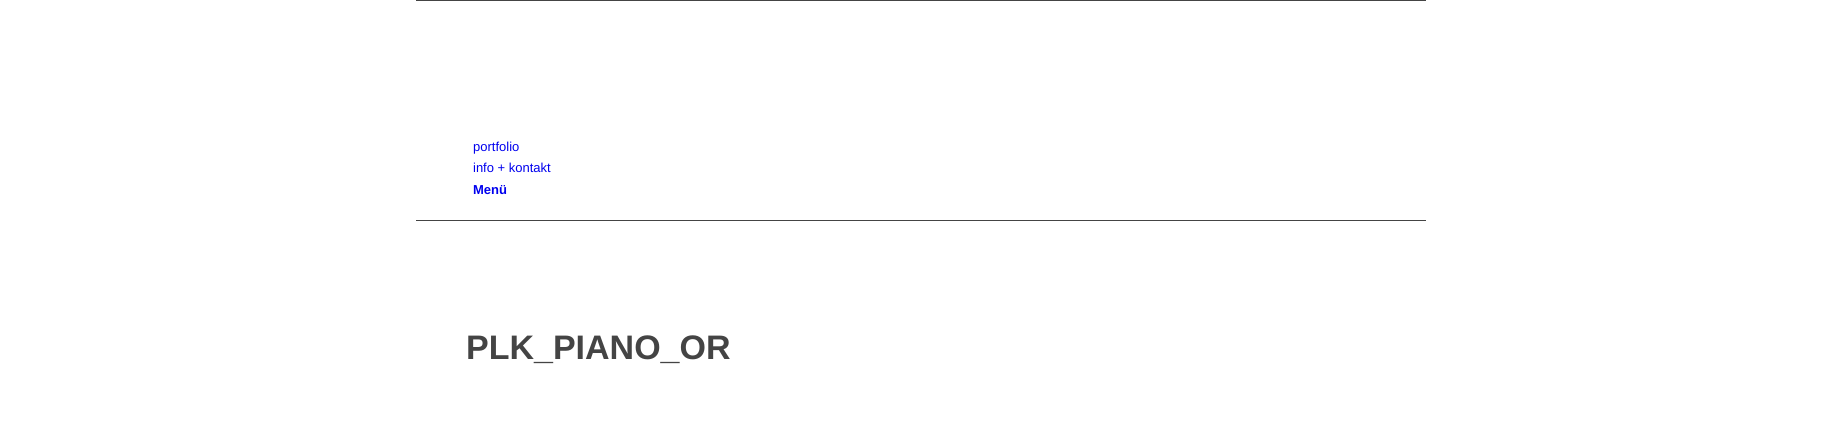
#include <cairo.h>
#include <math.h>
#include <stddef.h>


int main(void) {
    cairo_surface_t *surface = cairo_image_surface_create(CAIRO_FORMAT_RGB24, 1841, 423);
    cairo_t *cr = cairo_create(surface);
    cairo_font_options_t *options = cairo_font_options_create();
    cairo_font_options_set_hint_metrics(options, CAIRO_HINT_METRICS_OFF);
    cairo_font_options_set_hint_style(options, CAIRO_HINT_STYLE_NONE);
    cairo_set_font_options(cr, options);
    cairo_set_miter_limit(cr, 4);
    cairo_set_source_rgb(cr, 1, 1, 1);
    cairo_paint(cr);
    cairo_set_source_rgb(cr, 0.267, 0.267, 0.267);
    cairo_rectangle(cr, 416, 0, 1010, 1);
    cairo_fill(cr);
    cairo_select_font_face(cr, "Liberation Sans", CAIRO_FONT_SLANT_NORMAL, CAIRO_FONT_WEIGHT_NORMAL);
    cairo_set_font_size(cr, 13);
    cairo_set_source_rgb(cr, 0, 0, 0.933);
    cairo_move_to(cr, 473, 151);
    cairo_show_text(cr, "portfolio");
    cairo_move_to(cr, 473, 172);
    cairo_show_text(cr, "info + kontakt");
    cairo_select_font_face(cr, "Liberation Sans", CAIRO_FONT_SLANT_NORMAL, CAIRO_FONT_WEIGHT_BOLD);
    cairo_move_to(cr, 473, 194);
    cairo_show_text(cr, "Menü");
    cairo_set_source_rgb(cr, 0.267, 0.267, 0.267);
    cairo_rectangle(cr, 416, 220, 1010, 1);
    cairo_fill(cr);
    cairo_set_font_size(cr, 34);
    cairo_move_to(cr, 466, 359);
    cairo_show_text(cr, "PLK_PIANO_OR");
    cairo_surface_write_to_png(surface, "page.png");
    cairo_font_options_destroy(options);
    cairo_destroy(cr);
    cairo_surface_destroy(surface);
    return 0;
}
